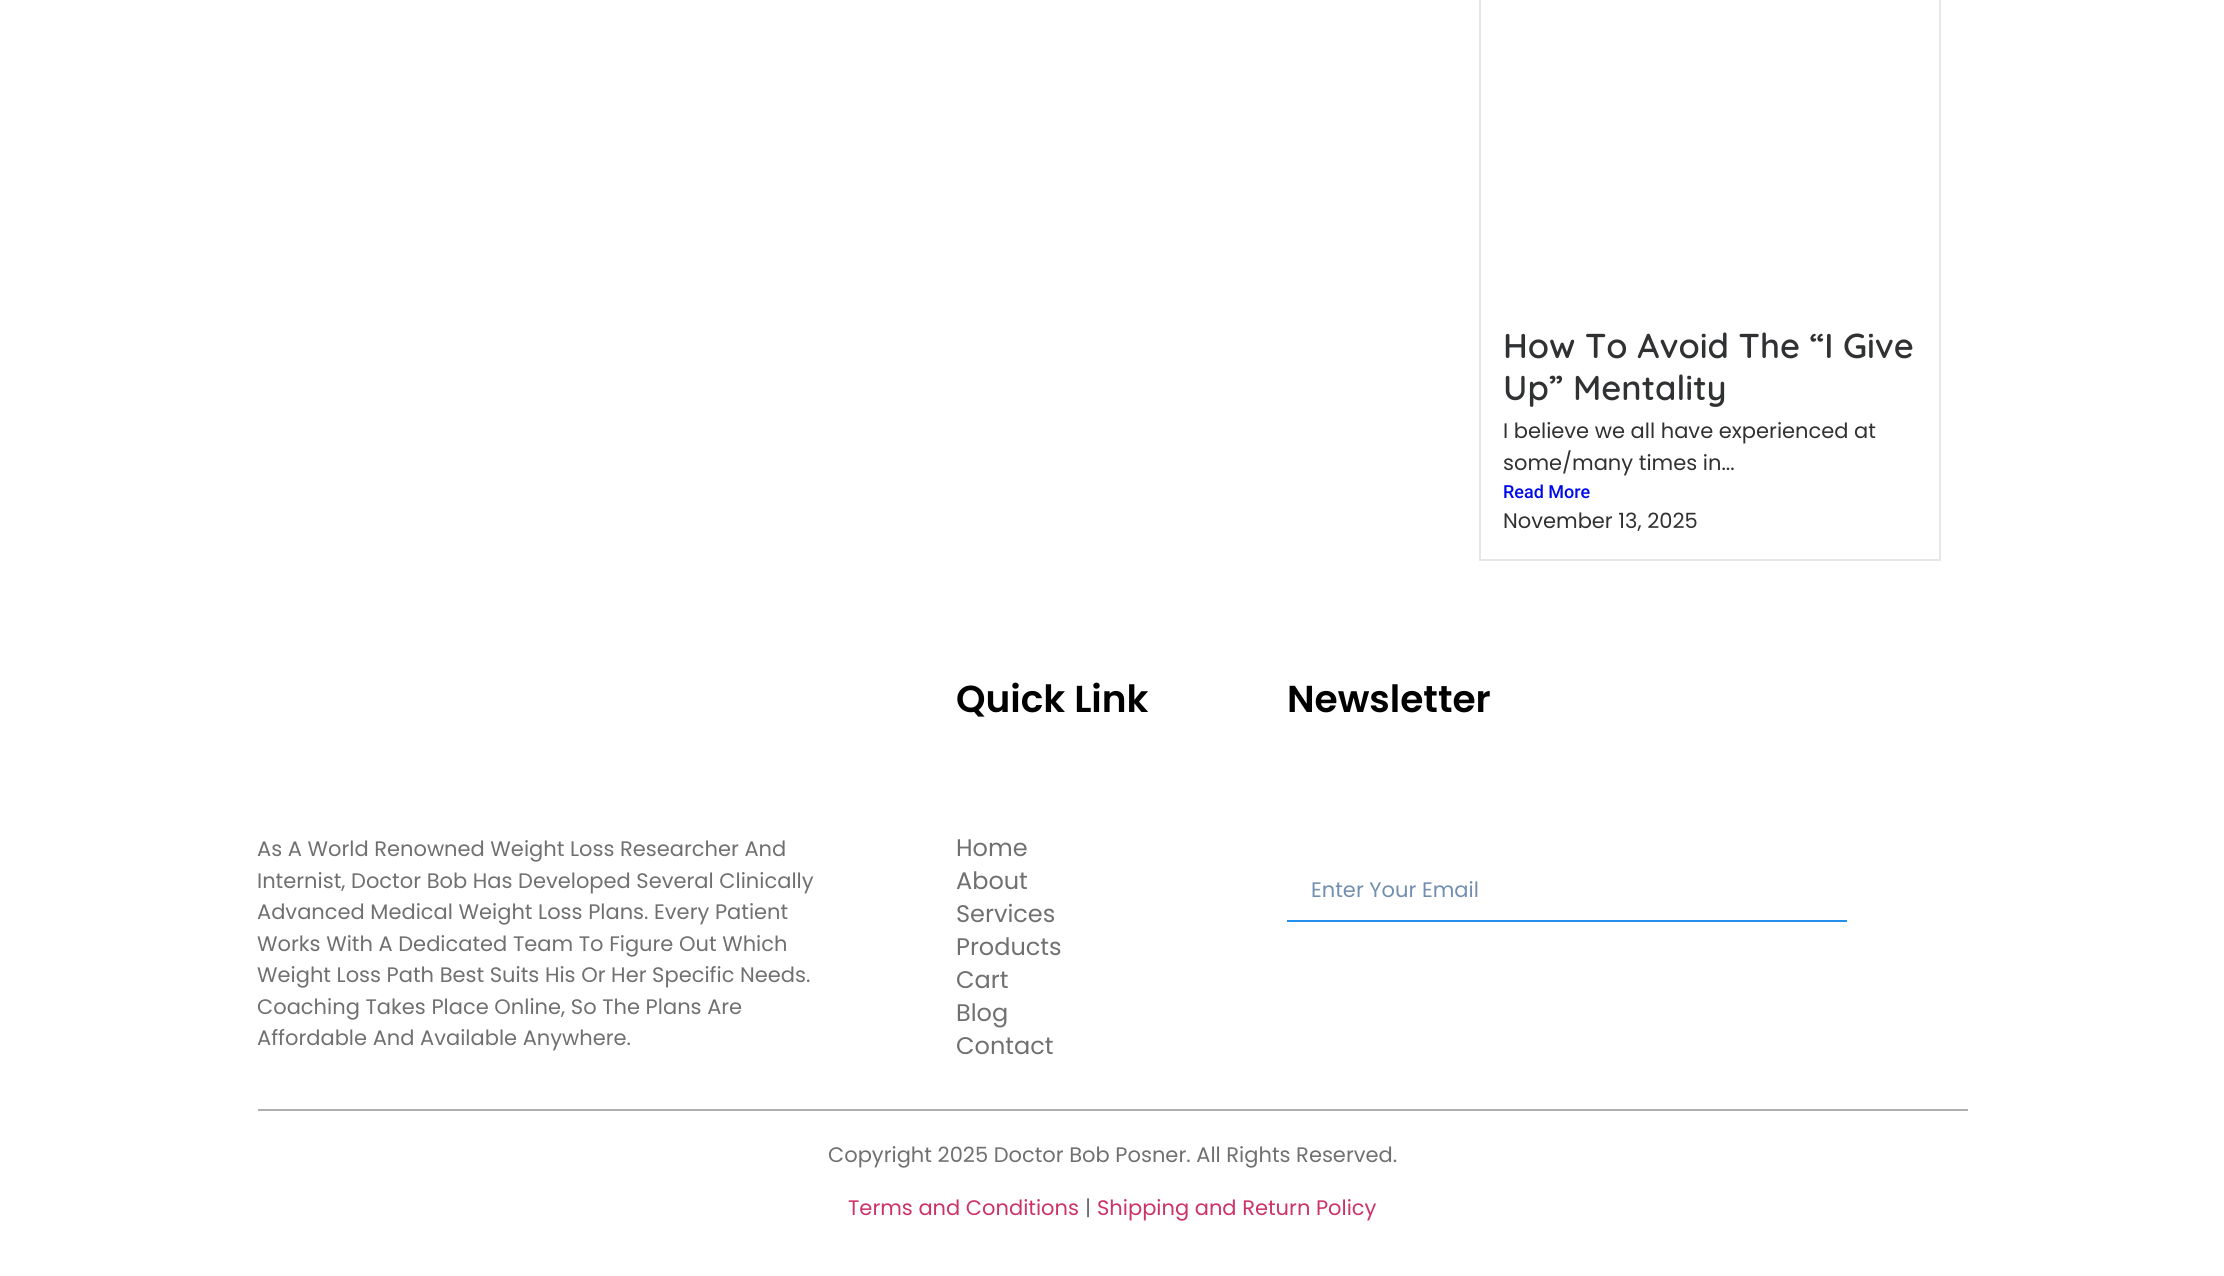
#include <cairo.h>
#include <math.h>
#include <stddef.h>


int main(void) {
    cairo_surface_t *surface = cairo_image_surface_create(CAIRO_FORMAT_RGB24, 2224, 1276);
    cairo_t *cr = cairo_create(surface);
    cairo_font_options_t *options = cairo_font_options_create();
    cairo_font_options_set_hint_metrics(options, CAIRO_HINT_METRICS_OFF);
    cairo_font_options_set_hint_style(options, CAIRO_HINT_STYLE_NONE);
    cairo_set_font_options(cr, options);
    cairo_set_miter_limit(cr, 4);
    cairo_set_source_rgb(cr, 1, 1, 1);
    cairo_paint(cr);
    cairo_rectangle(cr, 1480, -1, 460, 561);
    cairo_set_source_rgb(cr, 0.902, 0.902, 0.902);
    cairo_stroke(cr);
    cairo_select_font_face(cr, "Quicksand SemiBold", CAIRO_FONT_SLANT_NORMAL, CAIRO_FONT_WEIGHT_NORMAL);
    cairo_set_font_size(cr, 34.5);
    cairo_set_source_rgb(cr, 0.188, 0.192, 0.2);
    cairo_move_to(cr, 1503, 358);
    cairo_show_text(cr, "How To Avoid The “I Give");
    cairo_move_to(cr, 1503, 400);
    cairo_show_text(cr, "Up” Mentality");
    cairo_select_font_face(cr, "Poppins", CAIRO_FONT_SLANT_NORMAL, CAIRO_FONT_WEIGHT_NORMAL);
    cairo_set_font_size(cr, 21);
    cairo_move_to(cr, 1503, 438);
    cairo_show_text(cr, "I believe we all have experienced at");
    cairo_move_to(cr, 1503, 470);
    cairo_show_text(cr, "some/many times in...");
    cairo_select_font_face(cr, "Roboto Medium", CAIRO_FONT_SLANT_NORMAL, CAIRO_FONT_WEIGHT_NORMAL);
    cairo_set_font_size(cr, 18);
    cairo_set_source_rgb(cr, 0, 0.043, 0.925);
    cairo_move_to(cr, 1503, 498);
    cairo_show_text(cr, "Read More");
    cairo_select_font_face(cr, "Poppins", CAIRO_FONT_SLANT_NORMAL, CAIRO_FONT_WEIGHT_NORMAL);
    cairo_set_font_size(cr, 21);
    cairo_set_source_rgb(cr, 0.188, 0.192, 0.2);
    cairo_move_to(cr, 1503, 528);
    cairo_show_text(cr, "November 13, 2025");
    cairo_select_font_face(cr, "Poppins SemiBold", CAIRO_FONT_SLANT_NORMAL, CAIRO_FONT_WEIGHT_NORMAL);
    cairo_set_font_size(cr, 37.5);
    cairo_set_source_rgb(cr, 0, 0, 0);
    cairo_move_to(cr, 956, 712);
    cairo_show_text(cr, "Quick Link");
    cairo_select_font_face(cr, "Poppins", CAIRO_FONT_SLANT_NORMAL, CAIRO_FONT_WEIGHT_NORMAL);
    cairo_set_font_size(cr, 24);
    cairo_set_source_rgb(cr, 0.439, 0.439, 0.439);
    cairo_move_to(cr, 956, 856);
    cairo_show_text(cr, "Home");
    cairo_move_to(cr, 956, 889);
    cairo_show_text(cr, "About");
    cairo_move_to(cr, 956, 922);
    cairo_show_text(cr, "Services");
    cairo_move_to(cr, 956, 955);
    cairo_show_text(cr, "Products");
    cairo_move_to(cr, 956, 988);
    cairo_show_text(cr, "Cart");
    cairo_move_to(cr, 956, 1021);
    cairo_show_text(cr, "Blog");
    cairo_move_to(cr, 956, 1054);
    cairo_show_text(cr, "Contact");
    cairo_select_font_face(cr, "Poppins SemiBold", CAIRO_FONT_SLANT_NORMAL, CAIRO_FONT_WEIGHT_NORMAL);
    cairo_set_font_size(cr, 37.5);
    cairo_set_source_rgb(cr, 0, 0, 0);
    cairo_move_to(cr, 1287, 712);
    cairo_show_text(cr, "Newsletter");
    cairo_set_source_rgb(cr, 0.141, 0.565, 0.922);
    cairo_rectangle(cr, 1287, 920, 560, 2);
    cairo_fill(cr);
    cairo_select_font_face(cr, "Poppins", CAIRO_FONT_SLANT_NORMAL, CAIRO_FONT_WEIGHT_NORMAL);
    cairo_set_font_size(cr, 21);
    cairo_set_source_rgb(cr, 0.447, 0.561, 0.69);
    cairo_move_to(cr, 1311, 897);
    cairo_show_text(cr, "Enter Your Email");
    cairo_set_source_rgb(cr, 0.439, 0.439, 0.439);
    cairo_move_to(cr, 257, 856);
    cairo_show_text(cr, "As A World Renowned Weight Loss Researcher And");
    cairo_move_to(cr, 257, 888);
    cairo_show_text(cr, "Internist, Doctor Bob Has Developed Several Clinically");
    cairo_move_to(cr, 257, 919);
    cairo_show_text(cr, "Advanced Medical Weight Loss Plans. Every Patient");
    cairo_move_to(cr, 257, 951);
    cairo_show_text(cr, "Works With A Dedicated Team To Figure Out Which");
    cairo_move_to(cr, 257, 982);
    cairo_show_text(cr, "Weight Loss Path Best Suits His Or Her Specific Needs.");
    cairo_move_to(cr, 257, 1014);
    cairo_show_text(cr, "Coaching Takes Place Online, So The Plans Are");
    cairo_move_to(cr, 257, 1045);
    cairo_show_text(cr, "Affordable And Available Anywhere.");
    cairo_set_source_rgb(cr, 0.686, 0.686, 0.686);
    cairo_rectangle(cr, 258, 1109, 1710, 2);
    cairo_fill(cr);
    cairo_set_source_rgb(cr, 0.439, 0.439, 0.439);
    cairo_move_to(cr, 828, 1162);
    cairo_show_text(cr, "Copyright 2025 Doctor Bob Posner. All Rights Reserved.");
    cairo_set_source_rgb(cr, 0.8, 0.2, 0.4);
    cairo_move_to(cr, 848, 1215);
    cairo_show_text(cr, "Terms and Conditions");
    cairo_set_source_rgb(cr, 0.439, 0.439, 0.439);
    cairo_move_to(cr, 1085, 1215);
    cairo_show_text(cr, "|");
    cairo_set_source_rgb(cr, 0.8, 0.2, 0.4);
    cairo_move_to(cr, 1097, 1215);
    cairo_show_text(cr, "Shipping and Return Policy");
    cairo_surface_write_to_png(surface, "page.png");
    cairo_font_options_destroy(options);
    cairo_destroy(cr);
    cairo_surface_destroy(surface);
    return 0;
}
